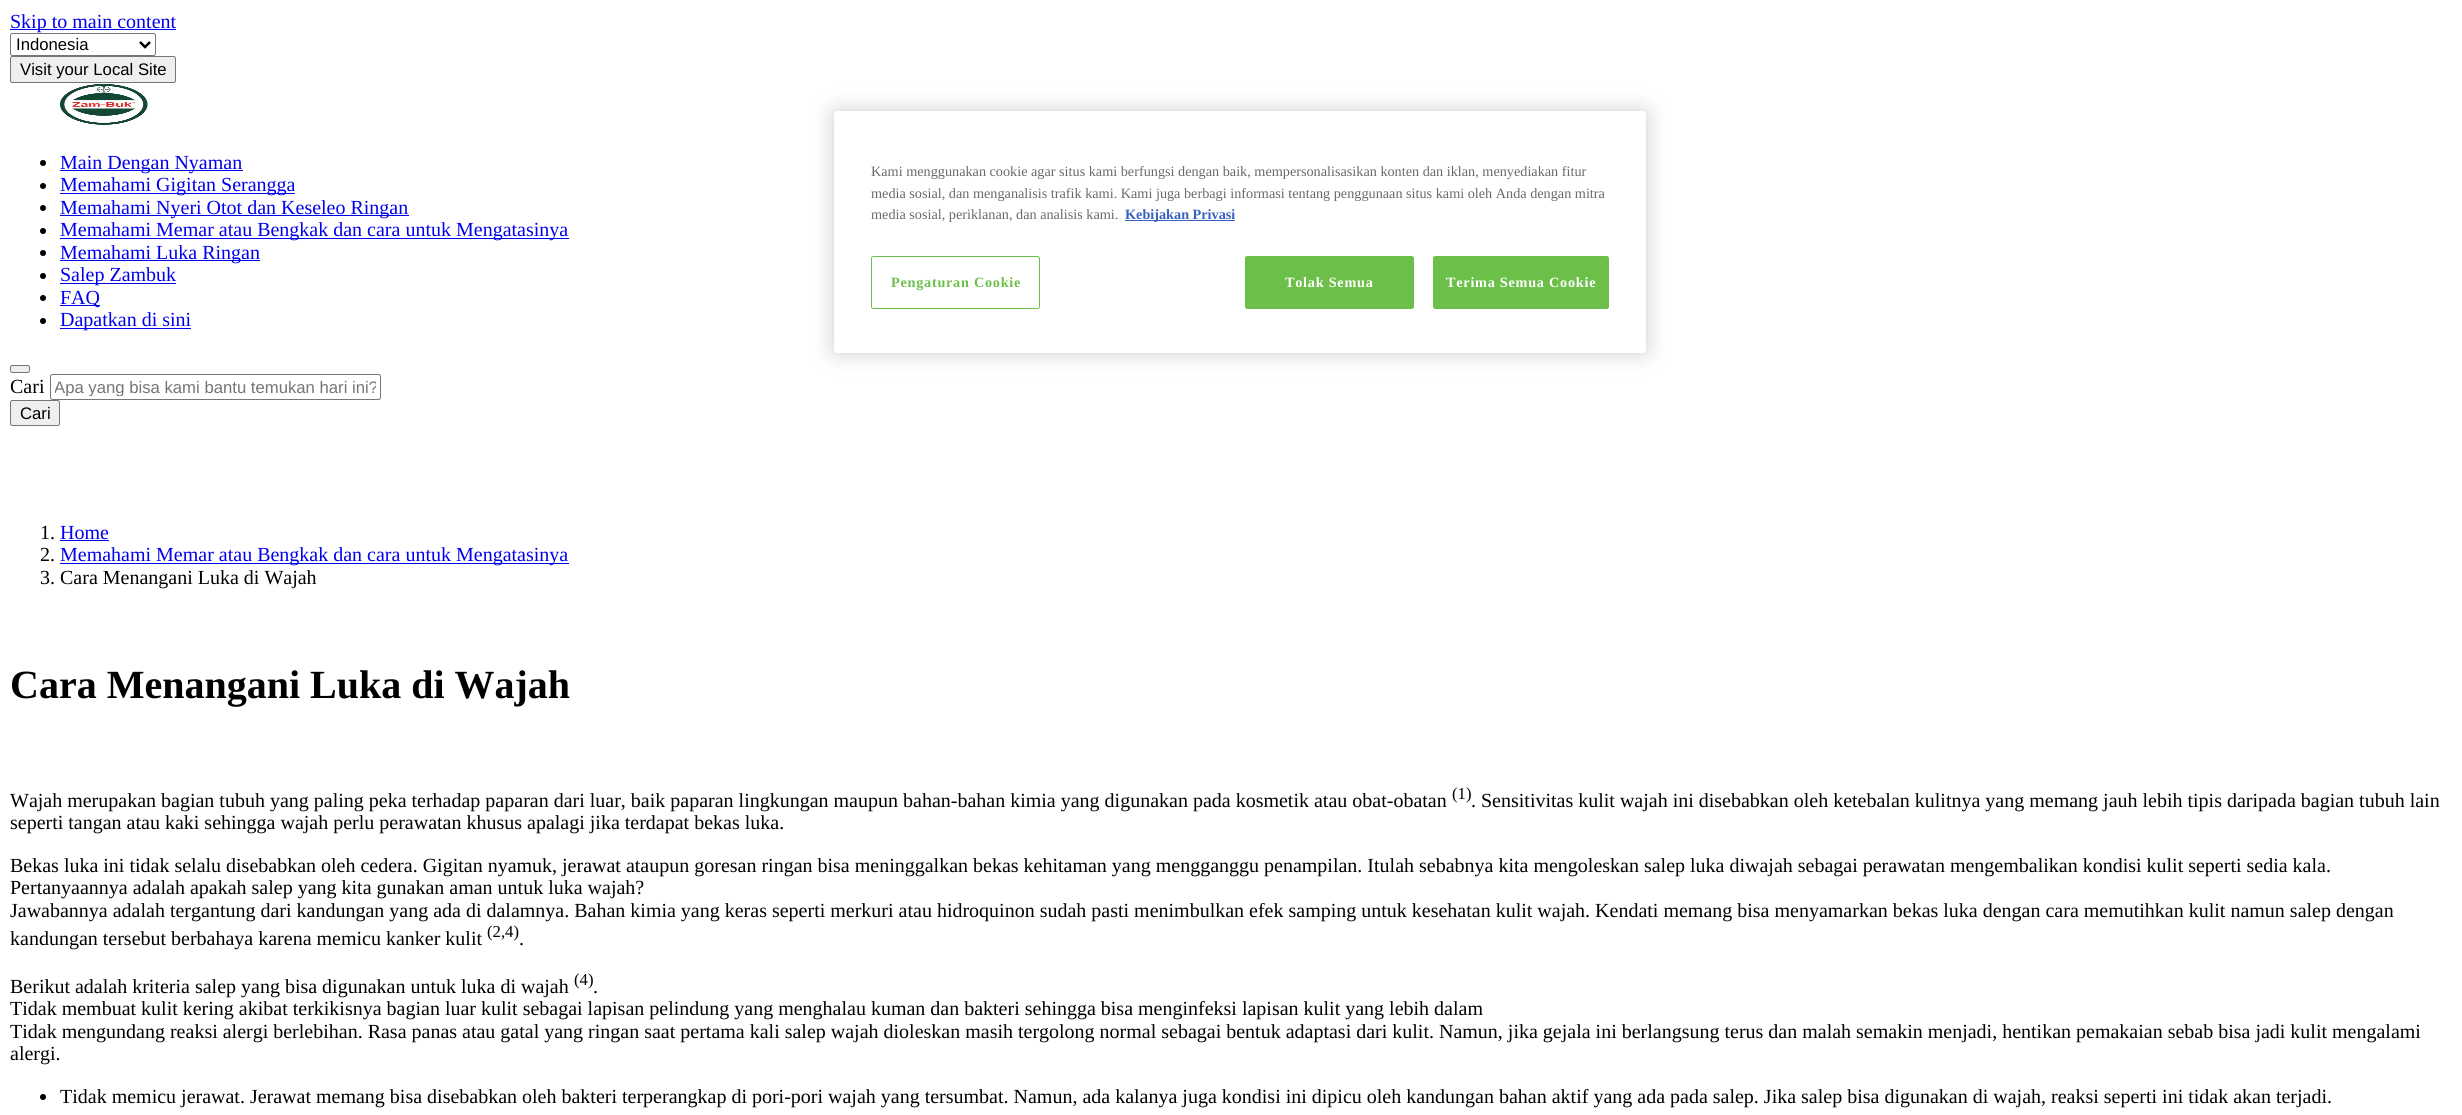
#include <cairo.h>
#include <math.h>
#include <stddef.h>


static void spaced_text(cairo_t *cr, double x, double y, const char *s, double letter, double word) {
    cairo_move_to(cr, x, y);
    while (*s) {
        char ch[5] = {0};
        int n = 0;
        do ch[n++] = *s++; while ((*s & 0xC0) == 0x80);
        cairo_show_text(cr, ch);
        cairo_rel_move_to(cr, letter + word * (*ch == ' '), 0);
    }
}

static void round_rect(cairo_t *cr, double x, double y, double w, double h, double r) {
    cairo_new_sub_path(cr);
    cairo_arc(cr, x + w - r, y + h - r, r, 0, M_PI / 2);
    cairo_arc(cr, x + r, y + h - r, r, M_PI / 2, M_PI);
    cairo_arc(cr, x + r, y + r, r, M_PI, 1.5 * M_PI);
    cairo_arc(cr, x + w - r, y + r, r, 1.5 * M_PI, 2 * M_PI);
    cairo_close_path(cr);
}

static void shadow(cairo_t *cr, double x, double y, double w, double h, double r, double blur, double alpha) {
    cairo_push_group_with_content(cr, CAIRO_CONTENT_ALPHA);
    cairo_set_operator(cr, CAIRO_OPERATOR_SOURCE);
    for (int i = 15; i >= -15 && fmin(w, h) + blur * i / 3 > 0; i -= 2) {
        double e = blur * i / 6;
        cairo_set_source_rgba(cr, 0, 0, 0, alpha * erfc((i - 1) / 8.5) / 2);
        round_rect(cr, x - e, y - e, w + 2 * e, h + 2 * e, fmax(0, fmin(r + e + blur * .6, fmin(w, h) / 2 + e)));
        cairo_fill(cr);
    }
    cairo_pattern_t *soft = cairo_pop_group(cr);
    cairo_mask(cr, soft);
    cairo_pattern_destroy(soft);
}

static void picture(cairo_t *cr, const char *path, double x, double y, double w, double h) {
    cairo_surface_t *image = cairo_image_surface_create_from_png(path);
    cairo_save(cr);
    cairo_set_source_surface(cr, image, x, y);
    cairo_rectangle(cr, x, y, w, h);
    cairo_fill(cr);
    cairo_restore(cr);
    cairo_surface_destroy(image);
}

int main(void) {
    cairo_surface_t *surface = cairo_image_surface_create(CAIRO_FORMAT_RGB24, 2462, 1115);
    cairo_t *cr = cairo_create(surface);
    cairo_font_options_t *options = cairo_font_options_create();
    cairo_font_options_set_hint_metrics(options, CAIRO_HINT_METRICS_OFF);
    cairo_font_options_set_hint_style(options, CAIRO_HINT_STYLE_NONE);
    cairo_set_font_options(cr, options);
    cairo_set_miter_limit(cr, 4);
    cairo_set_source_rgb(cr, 1, 1, 1);
    cairo_paint(cr);
    cairo_set_source_rgb(cr, 0, 0, 0.933);
    cairo_rectangle(cr, 10, 29, 166, 1);
    cairo_fill(cr);
    cairo_select_font_face(cr, "Liberation Serif", CAIRO_FONT_SLANT_NORMAL, CAIRO_FONT_WEIGHT_NORMAL);
    cairo_set_font_size(cr, 20);
    cairo_move_to(cr, 10, 28);
    cairo_show_text(cr, "Skip to main content");
    round_rect(cr, 10.5, 33.5, 145, 22, 2);
    cairo_set_source_rgb(cr, 0.463, 0.463, 0.463);
    cairo_set_line_width(cr, 1);
    cairo_stroke(cr);
    cairo_new_path(cr);
    cairo_move_to(cr, 140, 42);
    cairo_line_to(cr, 145, 47);
    cairo_line_to(cr, 150, 42);
    cairo_set_source_rgb(cr, 0, 0, 0);
    cairo_set_line_width(cr, 2.5);
    cairo_stroke(cr);
    cairo_select_font_face(cr, "Liberation Sans", CAIRO_FONT_SLANT_NORMAL, CAIRO_FONT_WEIGHT_NORMAL);
    cairo_set_font_size(cr, 16.7);
    cairo_move_to(cr, 16, 50);
    cairo_show_text(cr, "Indonesia");
    cairo_set_source_rgb(cr, 0.937, 0.937, 0.937);
    round_rect(cr, 10.5, 56.5, 165, 26, 2);
    cairo_fill_preserve(cr);
    cairo_set_source_rgb(cr, 0.463, 0.463, 0.463);
    cairo_set_line_width(cr, 1);
    cairo_stroke(cr);
    cairo_set_source_rgb(cr, 0, 0, 0);
    cairo_move_to(cr, 20, 75);
    cairo_show_text(cr, "Visit your Local Site");
    picture(cr, "img1.png", 60, 84, 88, 41);
    cairo_arc(cr, 43, 163, 3, 0, 2 * M_PI);
    cairo_fill(cr);
    cairo_set_source_rgb(cr, 0, 0, 0.933);
    cairo_rectangle(cr, 60, 170, 183, 1);
    cairo_fill(cr);
    cairo_select_font_face(cr, "Liberation Serif", CAIRO_FONT_SLANT_NORMAL, CAIRO_FONT_WEIGHT_NORMAL);
    cairo_set_font_size(cr, 20);
    cairo_move_to(cr, 60, 169);
    cairo_show_text(cr, "Main Dengan Nyaman");
    cairo_set_source_rgb(cr, 0, 0, 0);
    cairo_new_path(cr);
    cairo_arc(cr, 43, 186, 3, 0, 2 * M_PI);
    cairo_fill(cr);
    cairo_set_source_rgb(cr, 0, 0, 0.933);
    cairo_rectangle(cr, 60, 193, 235, 1);
    cairo_fill(cr);
    cairo_move_to(cr, 60, 191);
    cairo_show_text(cr, "Memahami Gigitan Serangga");
    cairo_set_source_rgb(cr, 0, 0, 0);
    cairo_new_path(cr);
    cairo_arc(cr, 43, 208, 3, 0, 2 * M_PI);
    cairo_fill(cr);
    cairo_set_source_rgb(cr, 0, 0, 0.933);
    cairo_rectangle(cr, 60, 215, 349, 1);
    cairo_fill(cr);
    cairo_move_to(cr, 60, 214);
    cairo_show_text(cr, "Memahami Nyeri Otot dan Keseleo Ringan");
    cairo_set_source_rgb(cr, 0, 0, 0);
    cairo_new_path(cr);
    cairo_arc(cr, 43, 231, 3, 0, 2 * M_PI);
    cairo_fill(cr);
    cairo_set_source_rgb(cr, 0, 0, 0.933);
    cairo_rectangle(cr, 60, 238, 509, 1);
    cairo_fill(cr);
    cairo_move_to(cr, 60, 236);
    cairo_show_text(cr, "Memahami Memar atau Bengkak dan cara untuk Mengatasinya");
    cairo_set_source_rgb(cr, 0, 0, 0);
    cairo_new_path(cr);
    cairo_arc(cr, 43, 253, 3, 0, 2 * M_PI);
    cairo_fill(cr);
    cairo_set_source_rgb(cr, 0, 0, 0.933);
    cairo_rectangle(cr, 60, 260, 200, 1);
    cairo_fill(cr);
    cairo_move_to(cr, 60, 259);
    cairo_show_text(cr, "Memahami Luka Ringan");
    cairo_set_source_rgb(cr, 0, 0, 0);
    cairo_new_path(cr);
    cairo_arc(cr, 43, 276, 3, 0, 2 * M_PI);
    cairo_fill(cr);
    cairo_set_source_rgb(cr, 0, 0, 0.933);
    cairo_rectangle(cr, 60, 283, 116, 1);
    cairo_fill(cr);
    cairo_move_to(cr, 60, 281);
    cairo_show_text(cr, "Salep Zambuk");
    cairo_set_source_rgb(cr, 0, 0, 0);
    cairo_new_path(cr);
    cairo_arc(cr, 43, 298, 3, 0, 2 * M_PI);
    cairo_fill(cr);
    cairo_set_source_rgb(cr, 0, 0, 0.933);
    cairo_rectangle(cr, 60, 305, 40, 1);
    cairo_fill(cr);
    cairo_move_to(cr, 60, 304);
    cairo_show_text(cr, "FAQ");
    cairo_set_source_rgb(cr, 0, 0, 0);
    cairo_new_path(cr);
    cairo_arc(cr, 43, 321, 3, 0, 2 * M_PI);
    cairo_fill(cr);
    cairo_set_source_rgb(cr, 0, 0, 0.933);
    cairo_rectangle(cr, 60, 328, 131, 1);
    cairo_fill(cr);
    cairo_move_to(cr, 60, 326);
    cairo_show_text(cr, "Dapatkan di sini");
    cairo_set_source_rgb(cr, 0.937, 0.937, 0.937);
    round_rect(cr, 10.5, 365.5, 19, 7, 2);
    cairo_fill_preserve(cr);
    cairo_set_source_rgb(cr, 0.463, 0.463, 0.463);
    cairo_stroke(cr);
    cairo_set_source_rgb(cr, 0, 0, 0);
    cairo_move_to(cr, 10, 393);
    cairo_show_text(cr, "Cari");
    round_rect(cr, 50.5, 374.5, 330, 25, 2);
    cairo_set_source_rgb(cr, 0.463, 0.463, 0.463);
    cairo_stroke(cr);
    cairo_save(cr);
    cairo_rectangle(cr, 55, 378, 321, 18);
    cairo_clip(cr);
    cairo_select_font_face(cr, "Liberation Sans", CAIRO_FONT_SLANT_NORMAL, CAIRO_FONT_WEIGHT_NORMAL);
    cairo_set_font_size(cr, 16.7);
    cairo_set_source_rgb(cr, 0.459, 0.459, 0.459);
    cairo_move_to(cr, 54, 393);
    cairo_show_text(cr, "Apa yang bisa kami bantu temukan hari ini?");
    cairo_restore(cr);
    cairo_set_source_rgb(cr, 0.937, 0.937, 0.937);
    round_rect(cr, 10.5, 400.5, 49, 25, 2);
    cairo_fill_preserve(cr);
    cairo_set_source_rgb(cr, 0.463, 0.463, 0.463);
    cairo_stroke(cr);
    cairo_select_font_face(cr, "Liberation Sans", CAIRO_FONT_SLANT_NORMAL, CAIRO_FONT_WEIGHT_NORMAL);
    cairo_set_font_size(cr, 16.7);
    cairo_set_source_rgb(cr, 0, 0, 0);
    cairo_move_to(cr, 20, 419);
    cairo_show_text(cr, "Cari");
    cairo_select_font_face(cr, "Liberation Serif", CAIRO_FONT_SLANT_NORMAL, CAIRO_FONT_WEIGHT_NORMAL);
    cairo_set_font_size(cr, 20);
    cairo_move_to(cr, 40, 539);
    cairo_show_text(cr, "1.");
    cairo_set_source_rgb(cr, 0, 0, 0.933);
    cairo_move_to(cr, 60, 539);
    cairo_show_text(cr, "Home");
    cairo_rectangle(cr, 60, 540, 49, 1);
    cairo_fill(cr);
    cairo_set_source_rgb(cr, 0, 0, 0);
    cairo_move_to(cr, 40, 561);
    cairo_show_text(cr, "2.");
    cairo_set_source_rgb(cr, 0, 0, 0.933);
    cairo_rectangle(cr, 60, 563, 509, 1);
    cairo_fill(cr);
    cairo_move_to(cr, 60, 561);
    cairo_show_text(cr, "Memahami Memar atau Bengkak dan cara untuk Mengatasinya");
    cairo_set_source_rgb(cr, 0, 0, 0);
    cairo_move_to(cr, 40, 584);
    cairo_show_text(cr, "3. Cara Menangani Luka di Wajah");
    cairo_select_font_face(cr, "Liberation Serif", CAIRO_FONT_SLANT_NORMAL, CAIRO_FONT_WEIGHT_BOLD);
    cairo_set_font_size(cr, 40);
    cairo_move_to(cr, 10, 698);
    cairo_show_text(cr, "Cara Menangani Luka di Wajah");
    cairo_select_font_face(cr, "Liberation Serif", CAIRO_FONT_SLANT_NORMAL, CAIRO_FONT_WEIGHT_NORMAL);
    cairo_set_font_size(cr, 20);
    cairo_move_to(cr, 10, 807);
    cairo_show_text(cr, "Wajah merupakan bagian tubuh yang paling peka terhadap paparan dari luar, baik paparan lingkungan maupun bahan-bahan kimia yang digunakan pada kosmetik atau obat-obatan");
    cairo_set_font_size(cr, 16.7);
    cairo_move_to(cr, 1452, 799);
    cairo_show_text(cr, "(1)");
    cairo_set_font_size(cr, 20);
    cairo_move_to(cr, 1471, 807);
    cairo_show_text(cr, ". Sensitivitas kulit wajah ini disebabkan oleh ketebalan kulitnya yang memang jauh lebih tipis daripada bagian tubuh lain");
    cairo_move_to(cr, 10, 829);
    cairo_show_text(cr, "seperti tangan atau kaki sehingga wajah perlu perawatan khusus apalagi jika terdapat bekas luka.");
    cairo_move_to(cr, 10, 872);
    cairo_show_text(cr, "Bekas luka ini tidak selalu disebabkan oleh cedera. Gigitan nyamuk, jerawat ataupun goresan ringan bisa meninggalkan bekas kehitaman yang mengganggu penampilan. Itulah sebabnya kita mengoleskan salep luka diwajah sebagai perawatan mengembalikan kondisi kulit seperti sedia kala.");
    cairo_move_to(cr, 10, 894);
    cairo_show_text(cr, "Pertanyaannya adalah apakah salep yang kita gunakan aman untuk luka wajah?");
    cairo_move_to(cr, 10, 917);
    cairo_show_text(cr, "Jawabannya adalah tergantung dari kandungan yang ada di dalamnya. Bahan kimia yang keras seperti merkuri atau hidroquinon sudah pasti menimbulkan efek samping untuk kesehatan kulit wajah. Kendati memang bisa menyamarkan bekas luka dengan cara memutihkan kulit namun salep dengan");
    cairo_move_to(cr, 10, 945);
    cairo_show_text(cr, "kandungan tersebut berbahaya karena memicu kanker kulit");
    cairo_set_font_size(cr, 16.7);
    cairo_move_to(cr, 487, 937);
    cairo_show_text(cr, "(2,4)");
    cairo_set_font_size(cr, 20);
    cairo_move_to(cr, 519, 945);
    cairo_show_text(cr, ".");
    cairo_move_to(cr, 10, 993);
    cairo_show_text(cr, "Berikut adalah kriteria salep yang bisa digunakan untuk luka di wajah");
    cairo_set_font_size(cr, 16.7);
    cairo_move_to(cr, 574, 985);
    cairo_show_text(cr, "(4)");
    cairo_set_font_size(cr, 20);
    cairo_move_to(cr, 593, 993);
    cairo_show_text(cr, ".");
    cairo_move_to(cr, 10, 1015);
    cairo_show_text(cr, "Tidak membuat kulit kering akibat terkikisnya bagian luar kulit sebagai lapisan pelindung yang menghalau kuman dan bakteri sehingga bisa menginfeksi lapisan kulit yang lebih dalam");
    cairo_move_to(cr, 10, 1038);
    cairo_show_text(cr, "Tidak mengundang reaksi alergi berlebihan. Rasa panas atau gatal yang ringan saat pertama kali salep wajah dioleskan masih tergolong normal sebagai bentuk adaptasi dari kulit. Namun, jika gejala ini berlangsung terus dan malah semakin menjadi, hentikan pemakaian sebab bisa jadi kulit mengalami");
    cairo_move_to(cr, 10, 1060);
    cairo_show_text(cr, "alergi.");
    cairo_new_path(cr);
    cairo_arc(cr, 43, 1097, 3, 0, 2 * M_PI);
    cairo_fill(cr);
    cairo_move_to(cr, 60, 1103);
    cairo_show_text(cr, "Tidak memicu jerawat. Jerawat memang bisa disebabkan oleh bakteri terperangkap di pori-pori wajah yang tersumbat. Namun, ada kalanya juga kondisi ini dipicu oleh kandungan bahan aktif yang ada pada salep. Jika salep bisa digunakan di wajah, reaksi seperti ini tidak akan terjadi.");
    cairo_set_source_rgb(cr, 0, 0, 0);
    shadow(cr, 834, 111, 812, 242, 3, 11, 0.2);
    cairo_set_source_rgb(cr, 1, 1, 1);
    round_rect(cr, 834, 111, 812, 242, 3);
    cairo_fill(cr);
    cairo_set_font_size(cr, 14.23);
    cairo_set_source_rgb(cr, 0.412, 0.412, 0.412);
    cairo_move_to(cr, 871, 176);
    cairo_show_text(cr, "Kami menggunakan cookie agar situs kami berfungsi dengan baik, mempersonalisasikan konten dan iklan, menyediakan fitur");
    cairo_move_to(cr, 871, 198);
    cairo_show_text(cr, "media sosial, dan menganalisis trafik kami. Kami juga berbagi informasi tentang penggunaan situs kami oleh Anda dengan mitra");
    cairo_move_to(cr, 871, 219);
    cairo_show_text(cr, "media sosial, periklanan, dan analisis kami.");
    cairo_set_source_rgb(cr, 0.22, 0.376, 0.745);
    cairo_rectangle(cr, 1125, 220, 110, 1);
    cairo_fill(cr);
    cairo_select_font_face(cr, "Liberation Serif", CAIRO_FONT_SLANT_NORMAL, CAIRO_FONT_WEIGHT_BOLD);
    cairo_move_to(cr, 1125, 219);
    cairo_show_text(cr, "Kebijakan Privasi");
    round_rect(cr, 871.5, 256.5, 168, 52, 2);
    cairo_set_source_rgb(cr, 0.424, 0.753, 0.29);
    cairo_stroke(cr);
    spaced_text(cr, 891, 287, "Pengaturan Cookie", 0.75, 0);
    round_rect(cr, 1245.5, 256.5, 168, 52, 2);
    cairo_fill_preserve(cr);
    cairo_stroke(cr);
    cairo_set_source_rgb(cr, 1, 1, 1);
    spaced_text(cr, 1285, 287, "Tolak Semua", 0.75, 0);
    cairo_set_source_rgb(cr, 0.424, 0.753, 0.29);
    round_rect(cr, 1433.5, 256.5, 175, 52, 2);
    cairo_fill_preserve(cr);
    cairo_stroke(cr);
    cairo_set_source_rgb(cr, 1, 1, 1);
    spaced_text(cr, 1446, 287, "Terima Semua Cookie", 0.75, 0);
    cairo_surface_write_to_png(surface, "page.png");
    cairo_font_options_destroy(options);
    cairo_destroy(cr);
    cairo_surface_destroy(surface);
    return 0;
}
